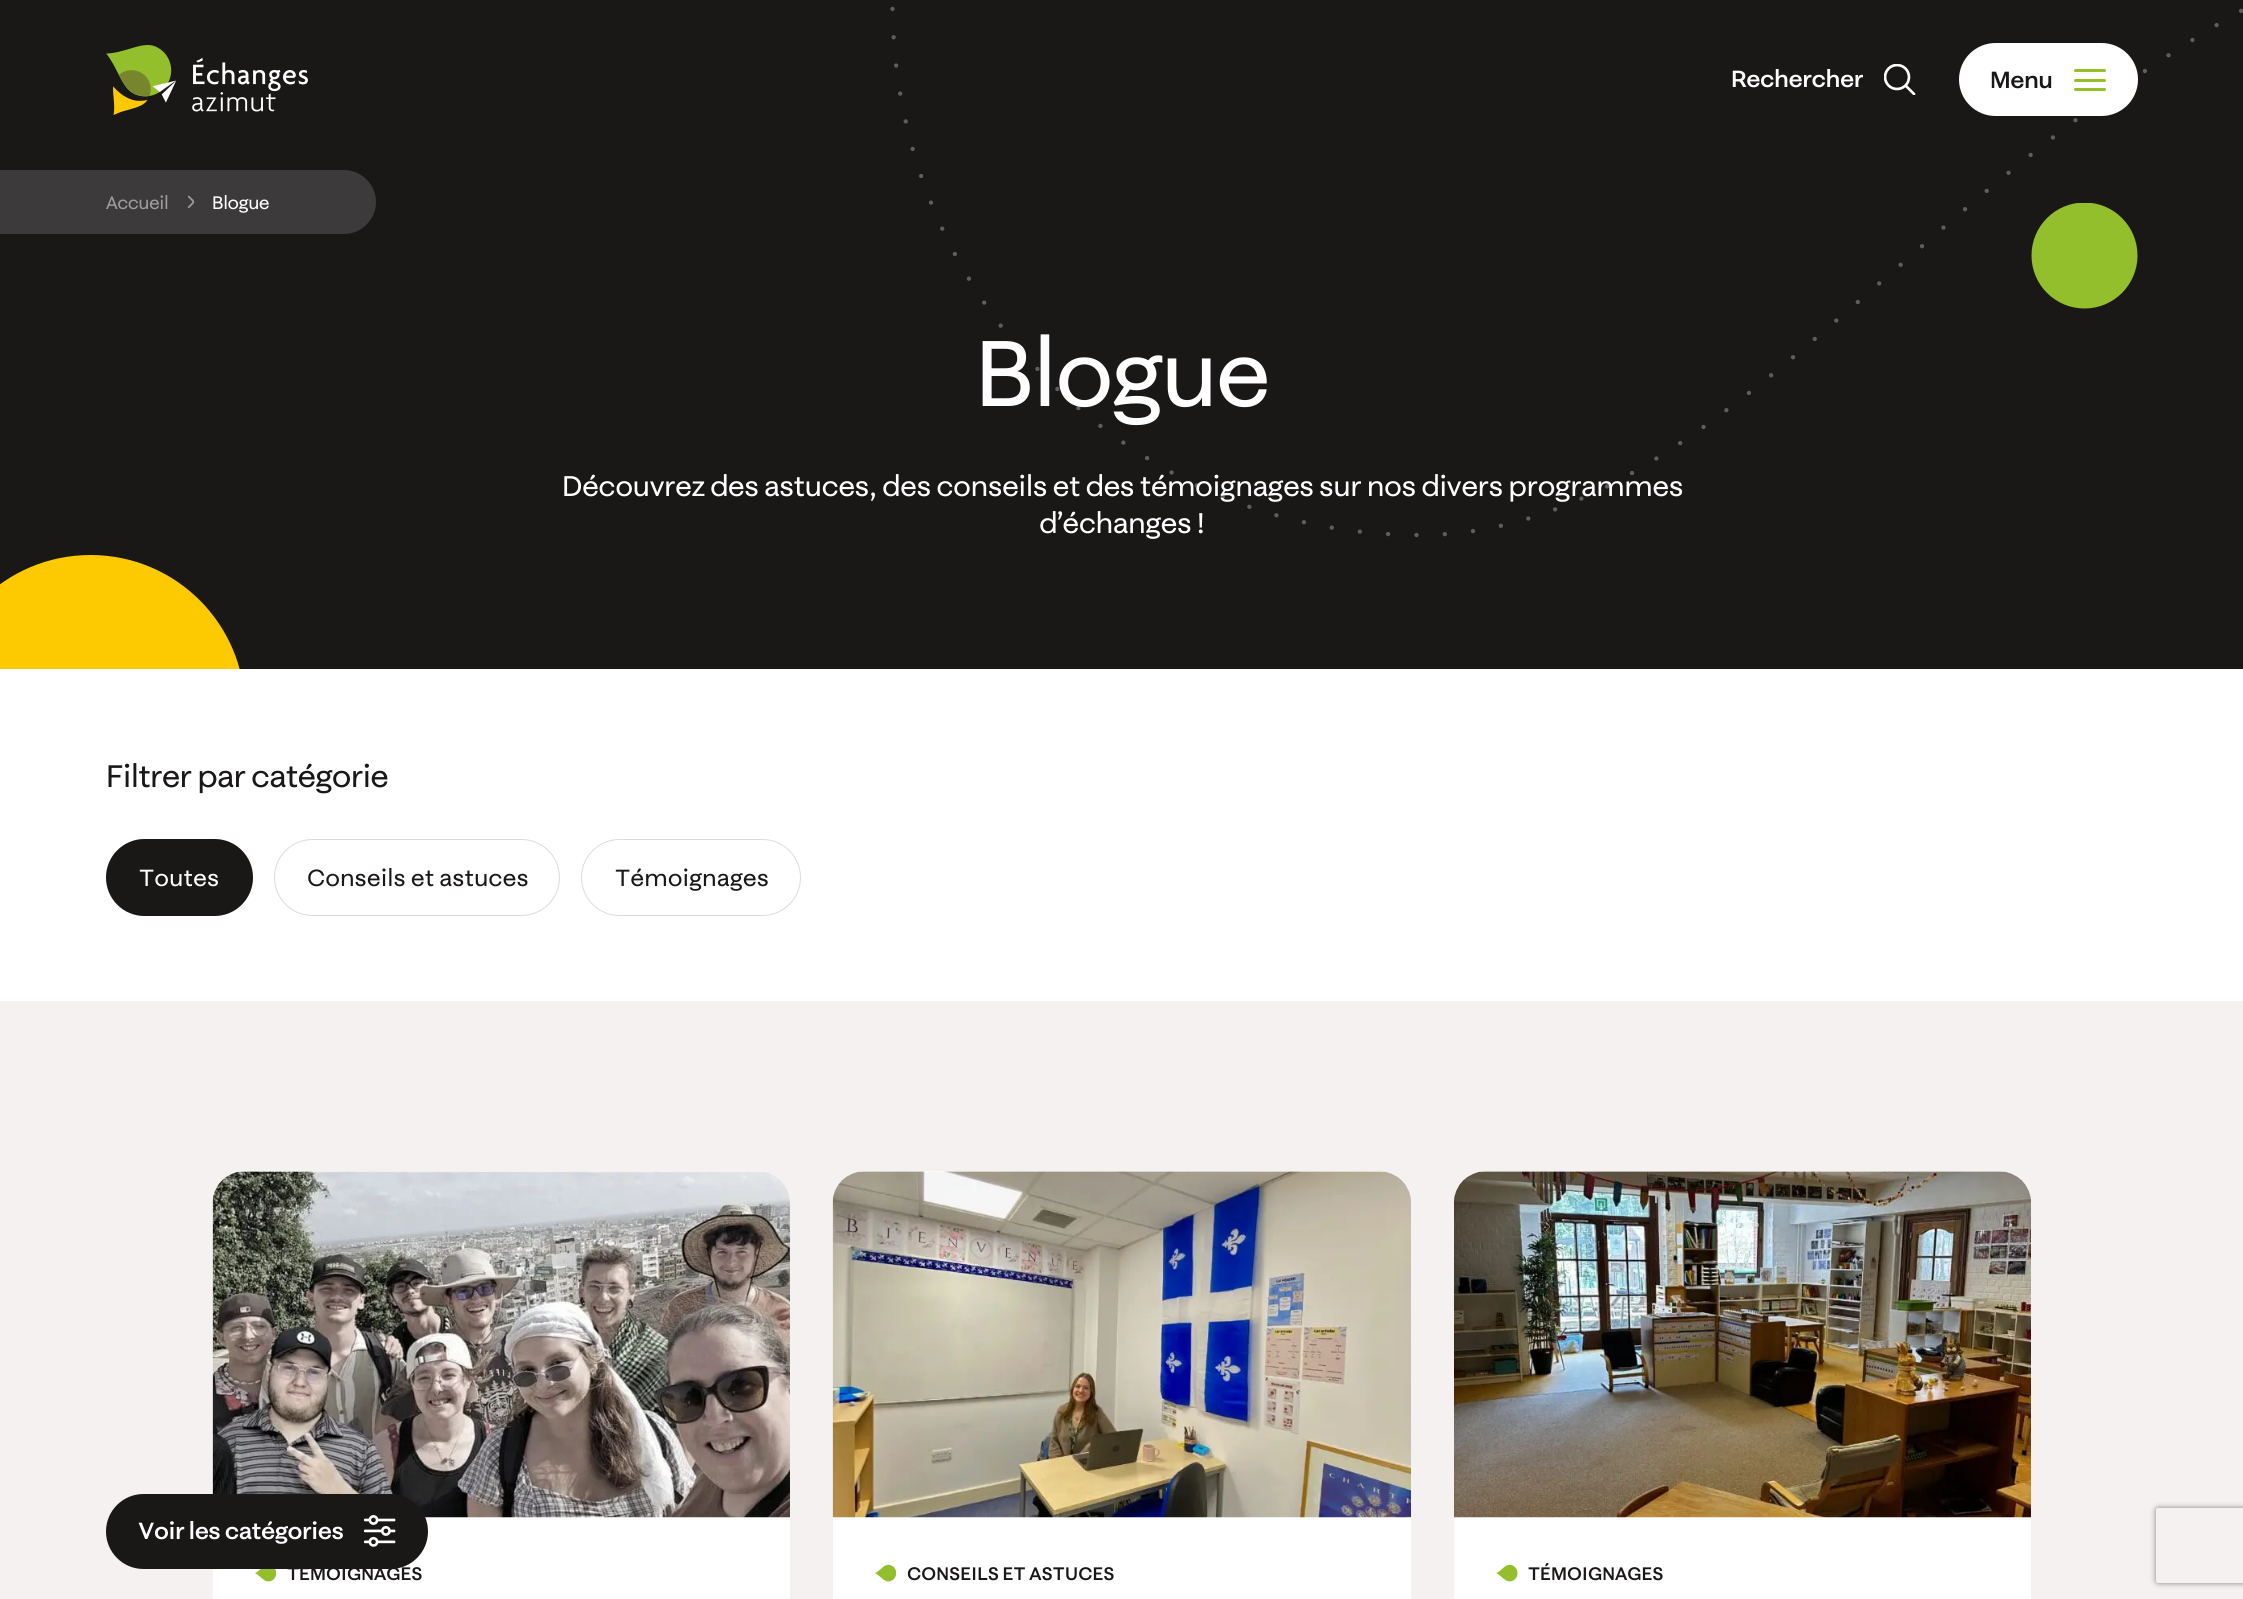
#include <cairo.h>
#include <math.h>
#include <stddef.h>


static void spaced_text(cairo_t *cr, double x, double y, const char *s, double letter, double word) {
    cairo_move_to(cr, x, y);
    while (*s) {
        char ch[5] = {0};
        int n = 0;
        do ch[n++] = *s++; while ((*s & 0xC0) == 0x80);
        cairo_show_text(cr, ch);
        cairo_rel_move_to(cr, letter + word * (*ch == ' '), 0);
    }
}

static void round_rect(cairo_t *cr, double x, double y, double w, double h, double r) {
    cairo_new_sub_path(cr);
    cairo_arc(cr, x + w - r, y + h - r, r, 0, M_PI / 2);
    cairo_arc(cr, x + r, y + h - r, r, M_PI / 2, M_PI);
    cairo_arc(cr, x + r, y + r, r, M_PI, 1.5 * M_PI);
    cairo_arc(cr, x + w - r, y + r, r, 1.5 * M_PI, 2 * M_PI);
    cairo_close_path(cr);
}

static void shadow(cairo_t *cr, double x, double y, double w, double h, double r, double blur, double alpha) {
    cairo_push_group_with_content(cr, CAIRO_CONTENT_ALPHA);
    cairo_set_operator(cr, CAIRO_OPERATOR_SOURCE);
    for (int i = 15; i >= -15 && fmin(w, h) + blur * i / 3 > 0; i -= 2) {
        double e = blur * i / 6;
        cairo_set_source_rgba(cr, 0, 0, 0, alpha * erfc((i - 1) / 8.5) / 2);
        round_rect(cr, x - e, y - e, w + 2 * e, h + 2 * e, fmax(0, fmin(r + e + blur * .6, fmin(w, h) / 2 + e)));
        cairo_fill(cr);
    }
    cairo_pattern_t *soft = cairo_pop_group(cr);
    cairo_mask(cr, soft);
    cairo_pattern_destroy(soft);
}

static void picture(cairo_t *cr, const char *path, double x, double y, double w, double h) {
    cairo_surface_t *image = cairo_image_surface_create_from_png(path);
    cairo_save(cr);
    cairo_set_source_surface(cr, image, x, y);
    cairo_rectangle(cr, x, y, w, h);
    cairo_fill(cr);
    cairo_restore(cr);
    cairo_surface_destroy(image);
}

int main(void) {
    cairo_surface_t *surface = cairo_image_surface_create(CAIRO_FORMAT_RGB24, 2243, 1599);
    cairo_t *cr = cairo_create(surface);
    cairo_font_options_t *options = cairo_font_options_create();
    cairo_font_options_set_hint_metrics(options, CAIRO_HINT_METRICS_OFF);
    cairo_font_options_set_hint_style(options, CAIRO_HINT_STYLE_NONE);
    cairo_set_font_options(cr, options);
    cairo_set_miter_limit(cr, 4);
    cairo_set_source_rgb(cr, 0.961, 0.945, 0.945);
    cairo_paint(cr);
    cairo_set_source_rgb(cr, 0.102, 0.09, 0.09);
    cairo_rectangle(cr, 0, 0, 2243, 669);
    cairo_fill(cr);
    picture(cr, "img1.png", 106, 45, 202, 70);
    cairo_save(cr);
    cairo_rectangle(cr, 2031, 203, 107, 106);
    cairo_clip(cr);
    cairo_set_source_rgb(cr, 0.576, 0.749, 0.176);
    cairo_arc(cr, 2084.5, 255.5, 53, 0, 2 * M_PI);
    cairo_fill(cr);
    cairo_restore(cr);
    cairo_new_path(cr);
    cairo_move_to(cr, 1144.5, -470);
    cairo_curve_to(cr, 995.5, -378, 895.5, -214, 892.5, -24.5);
    cairo_line_to(cr, 892.5, 10.5);
    cairo_curve_to(cr, 895.5, 200.5, 995.5, 364, 1144.5, 456.5);
    cairo_curve_to(cr, 1225.5, 508, 1323, 536, 1426, 535);
    cairo_curve_to(cr, 1593.5, 532, 1730.5, 413, 1886, 277.5);
    cairo_curve_to(cr, 1948, 223.5, 2014.5, 165, 2086.5, 112);
    cairo_curve_to(cr, 2146, 69, 2208, 27, 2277, -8.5);
    cairo_curve_to(cr, 2208, -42, 2146, -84, 2086.5, -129);
    cairo_curve_to(cr, 2014.5, -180.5, 1949.5, -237.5, 1886, -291.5);
    cairo_curve_to(cr, 1730.5, -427, 1593.5, -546, 1426, -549);
    cairo_curve_to(cr, 1323, -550, 1225.5, -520.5, 1144.5, -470);
    cairo_close_path(cr);
    cairo_set_source_rgb(cr, 0.373, 0.365, 0.365);
    cairo_set_line_width(cr, 4.3);
    cairo_set_line_cap(cr, CAIRO_LINE_CAP_ROUND);
    cairo_set_dash(cr, (double[]){0, 28.37}, 2, 0);
    cairo_stroke(cr);
    cairo_select_font_face(cr, "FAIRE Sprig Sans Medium", CAIRO_FONT_SLANT_NORMAL, CAIRO_FONT_WEIGHT_NORMAL);
    cairo_set_font_size(cr, 24);
    cairo_set_source_rgb(cr, 1, 1, 1);
    spaced_text(cr, 1731, 87, "Rechercher", -0.5, 0);
    picture(cr, "img2.png", 1884, 64, 32, 31);
    round_rect(cr, 1959, 43, 179, 73, 36.5);
    cairo_fill(cr);
    cairo_set_source_rgb(cr, 0.102, 0.09, 0.09);
    spaced_text(cr, 1990, 88, "Menu", -0.5, 0);
    cairo_set_source_rgb(cr, 0.576, 0.749, 0.176);
    round_rect(cr, 2074, 69, 32, 3, 1.5);
    cairo_fill(cr);
    round_rect(cr, 2074, 79, 32, 3, 1.5);
    cairo_fill(cr);
    round_rect(cr, 2074, 88, 32, 3, 1.5);
    cairo_fill(cr);
    cairo_set_source_rgb(cr, 0.235, 0.227, 0.227);
    cairo_new_path(cr);
    cairo_move_to(cr, 0, 170);
    cairo_line_to(cr, 344, 170);
    cairo_curve_to(cr, 361.5, 170, 376, 184.5, 376, 202);
    cairo_curve_to(cr, 376, 219.5, 361.5, 234, 344, 234);
    cairo_line_to(cr, 0, 234);
    cairo_close_path(cr);
    cairo_fill(cr);
    cairo_select_font_face(cr, "FAIRE Sprig Sans", CAIRO_FONT_SLANT_NORMAL, CAIRO_FONT_WEIGHT_NORMAL);
    cairo_set_font_size(cr, 18.6);
    cairo_set_source_rgb(cr, 0.62, 0.616, 0.616);
    spaced_text(cr, 106, 209, "Accueil", -0.5, 0);
    picture(cr, "img3.png", 187, 195, 8, 13);
    cairo_set_source_rgb(cr, 1, 1, 1);
    spaced_text(cr, 212, 209, "Blogue", -0.5, 0);
    cairo_set_font_size(cr, 95.5);
    spaced_text(cr, 975, 406, "Blogue", -2.5, 0);
    cairo_set_font_size(cr, 29.2);
    spaced_text(cr, 562, 496, "Découvrez des astuces, des conseils et des témoignages sur nos divers programmes", -0.58, 0);
    spaced_text(cr, 1039, 533, "d’échanges !", -0.58, 0);
    cairo_save(cr);
    cairo_rectangle(cr, 0, 555, 245, 114);
    cairo_clip(cr);
    cairo_set_source_rgb(cr, 0.992, 0.788, 0);
    cairo_arc(cr, 90.5, 709.5, 154.5, 0, 2 * M_PI);
    cairo_fill(cr);
    cairo_restore(cr);
    cairo_rectangle(cr, 0, 669, 2243, 332);
    cairo_fill(cr);
    cairo_set_font_size(cr, 31.9);
    cairo_set_source_rgb(cr, 0.102, 0.09, 0.09);
    spaced_text(cr, 106, 787, "Filtrer par catégorie", -0.8, 0);
    round_rect(cr, 106, 839, 147, 77, 38.5);
    cairo_fill(cr);
    round_rect(cr, 106.5, 839.5, 146, 76, 38);
    cairo_set_source_rgba(cr, 0.102, 0.09, 0.09, 0.15);
    cairo_set_line_width(cr, 1);
    cairo_set_line_cap(cr, CAIRO_LINE_CAP_BUTT);
    cairo_set_dash(cr, NULL, 0, 0);
    cairo_stroke(cr);
    cairo_set_font_size(cr, 24);
    cairo_set_source_rgb(cr, 1, 1, 1);
    cairo_move_to(cr, 139, 886);
    cairo_show_text(cr, "Toutes");
    round_rect(cr, 274.5, 839.5, 285, 76, 38);
    cairo_set_source_rgb(cr, 0.867, 0.863, 0.863);
    cairo_stroke(cr);
    cairo_set_source_rgb(cr, 0.102, 0.09, 0.09);
    cairo_move_to(cr, 307, 886);
    cairo_show_text(cr, "Conseils et astuces");
    round_rect(cr, 581.5, 839.5, 219, 76, 38);
    cairo_set_source_rgb(cr, 0.867, 0.863, 0.863);
    cairo_stroke(cr);
    cairo_set_source_rgb(cr, 0.102, 0.09, 0.09);
    cairo_move_to(cr, 615, 886);
    cairo_show_text(cr, "Témoignages");
    cairo_set_source_rgb(cr, 1, 1, 1);
    round_rect(cr, 213, 1171, 577, 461, 33);
    cairo_fill(cr);
    picture(cr, "img4.png", 212, 1171, 578, 347);
    picture(cr, "img5.png", 255, 1569, 21, 13);
    cairo_select_font_face(cr, "FAIRE Sprig Sans Medium", CAIRO_FONT_SLANT_NORMAL, CAIRO_FONT_WEIGHT_NORMAL);
    cairo_set_font_size(cr, 18.6);
    cairo_set_source_rgb(cr, 0.102, 0.09, 0.09);
    cairo_move_to(cr, 287, 1580);
    cairo_show_text(cr, "TÉMOIGNAGES");
    cairo_set_source_rgb(cr, 1, 1, 1);
    round_rect(cr, 833, 1171, 578, 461, 33);
    cairo_fill(cr);
    picture(cr, "img6.png", 832, 1171, 579, 347);
    picture(cr, "img7.png", 875, 1564, 21, 18);
    cairo_set_source_rgb(cr, 0.102, 0.09, 0.09);
    cairo_move_to(cr, 907, 1580);
    cairo_show_text(cr, "CONSEILS ET ASTUCES");
    cairo_set_source_rgb(cr, 1, 1, 1);
    round_rect(cr, 1454, 1171, 577, 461, 33);
    cairo_fill(cr);
    picture(cr, "img8.png", 1454, 1171, 577, 347);
    picture(cr, "img9.png", 1496, 1564, 22, 18);
    cairo_set_source_rgb(cr, 0.102, 0.09, 0.09);
    cairo_move_to(cr, 1528, 1580);
    cairo_show_text(cr, "TÉMOIGNAGES");
    round_rect(cr, 106, 1494, 322, 75, 37.5);
    cairo_fill(cr);
    cairo_set_font_size(cr, 24);
    cairo_set_source_rgb(cr, 1, 1, 1);
    spaced_text(cr, 138, 1539, "Voir les catégories", -0.5, 0);
    picture(cr, "img10.png", 364, 1515, 32, 32);
    cairo_save(cr);
    cairo_set_fill_rule(cr, CAIRO_FILL_RULE_EVEN_ODD);
    cairo_new_path(cr);
    cairo_move_to(cr, 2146, 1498);
    cairo_line_to(cr, 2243, 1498);
    cairo_line_to(cr, 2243, 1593);
    cairo_line_to(cr, 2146, 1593);
    cairo_close_path(cr);
    cairo_move_to(cr, 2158.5, 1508);
    cairo_line_to(cr, 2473.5, 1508);
    cairo_curve_to(cr, 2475, 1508, 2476, 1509, 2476, 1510.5);
    cairo_line_to(cr, 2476, 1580.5);
    cairo_curve_to(cr, 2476, 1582, 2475, 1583, 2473.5, 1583);
    cairo_line_to(cr, 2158.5, 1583);
    cairo_curve_to(cr, 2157, 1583, 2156, 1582, 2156, 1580.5);
    cairo_line_to(cr, 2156, 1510.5);
    cairo_curve_to(cr, 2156, 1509, 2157, 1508, 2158.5, 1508);
    cairo_close_path(cr);
    cairo_clip(cr);
    cairo_set_source_rgb(cr, 0.502, 0.502, 0.502);
    shadow(cr, 2156, 1508, 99, 75, 2.5, 3, 1);
    cairo_restore(cr);
    cairo_surface_write_to_png(surface, "page.png");
    cairo_font_options_destroy(options);
    cairo_destroy(cr);
    cairo_surface_destroy(surface);
    return 0;
}
